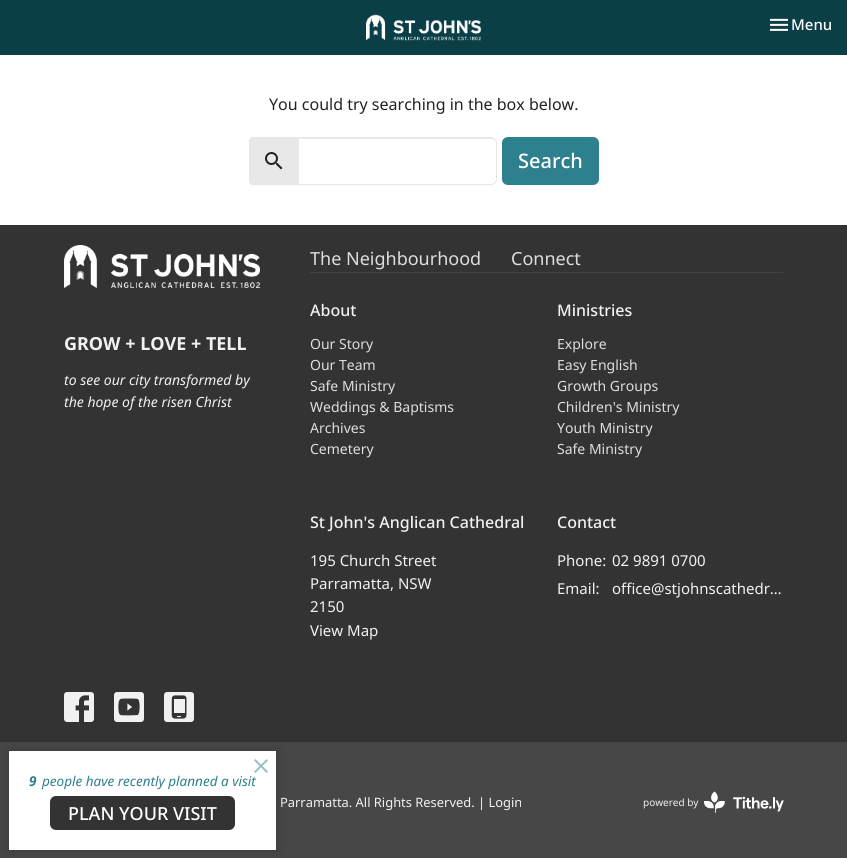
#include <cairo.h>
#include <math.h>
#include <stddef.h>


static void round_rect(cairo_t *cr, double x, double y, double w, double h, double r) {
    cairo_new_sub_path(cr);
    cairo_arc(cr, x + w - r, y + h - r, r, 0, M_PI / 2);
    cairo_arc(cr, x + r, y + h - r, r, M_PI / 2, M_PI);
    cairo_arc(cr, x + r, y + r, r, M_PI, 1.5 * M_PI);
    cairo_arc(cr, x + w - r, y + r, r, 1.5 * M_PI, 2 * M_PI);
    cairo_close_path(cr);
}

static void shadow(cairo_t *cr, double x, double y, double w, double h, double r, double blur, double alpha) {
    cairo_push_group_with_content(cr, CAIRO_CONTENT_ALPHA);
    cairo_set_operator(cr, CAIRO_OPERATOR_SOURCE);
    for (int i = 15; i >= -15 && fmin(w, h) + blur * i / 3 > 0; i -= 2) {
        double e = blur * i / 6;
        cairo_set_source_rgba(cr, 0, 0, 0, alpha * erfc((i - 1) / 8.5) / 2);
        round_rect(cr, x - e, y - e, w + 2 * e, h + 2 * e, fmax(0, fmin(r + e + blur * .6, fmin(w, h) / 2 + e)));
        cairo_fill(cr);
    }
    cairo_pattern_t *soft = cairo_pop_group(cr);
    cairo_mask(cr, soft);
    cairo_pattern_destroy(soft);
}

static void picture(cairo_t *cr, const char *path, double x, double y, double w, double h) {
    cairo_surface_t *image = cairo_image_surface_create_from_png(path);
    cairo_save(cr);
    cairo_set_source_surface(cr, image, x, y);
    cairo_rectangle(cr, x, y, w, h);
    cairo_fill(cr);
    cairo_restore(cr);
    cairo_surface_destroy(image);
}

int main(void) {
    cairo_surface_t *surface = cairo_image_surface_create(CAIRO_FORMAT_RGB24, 847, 858);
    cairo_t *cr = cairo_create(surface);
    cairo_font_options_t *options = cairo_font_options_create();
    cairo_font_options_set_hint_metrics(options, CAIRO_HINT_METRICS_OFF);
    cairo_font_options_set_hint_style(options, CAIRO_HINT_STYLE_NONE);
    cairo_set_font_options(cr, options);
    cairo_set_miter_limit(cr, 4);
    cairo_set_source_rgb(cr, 1, 1, 1);
    cairo_paint(cr);
    cairo_set_source_rgb(cr, 0.043, 0.247, 0.278);
    cairo_rectangle(cr, 0, 0, 847, 55);
    cairo_fill(cr);
    picture(cr, "img1.png", 366, 14, 115, 27);
    picture(cr, "img2.png", 770, 18, 18, 13);
    cairo_select_font_face(cr, "Noto Sans Medium", CAIRO_FONT_SLANT_NORMAL, CAIRO_FONT_WEIGHT_NORMAL);
    cairo_set_font_size(cr, 15);
    cairo_set_source_rgb(cr, 1, 1, 1);
    cairo_move_to(cr, 791, 30);
    cairo_show_text(cr, "Menu");
    cairo_select_font_face(cr, "Noto Sans", CAIRO_FONT_SLANT_NORMAL, CAIRO_FONT_WEIGHT_NORMAL);
    cairo_set_font_size(cr, 16);
    cairo_set_source_rgb(cr, 0.133, 0.133, 0.133);
    cairo_move_to(cr, 269, 110);
    cairo_show_text(cr, "You could try searching in the box below.");
    cairo_set_source_rgb(cr, 0.91, 0.91, 0.91);
    cairo_new_path(cr);
    cairo_move_to(cr, 253, 137);
    cairo_line_to(cr, 298, 137);
    cairo_line_to(cr, 298, 185);
    cairo_line_to(cr, 253, 185);
    cairo_curve_to(cr, 251, 185, 249, 183, 249, 181);
    cairo_line_to(cr, 249, 141);
    cairo_curve_to(cr, 249, 139, 251, 137, 253, 137);
    cairo_close_path(cr);
    cairo_fill(cr);
    cairo_set_source_rgb(cr, 0.902, 0.902, 0.902);
    cairo_set_fill_rule(cr, CAIRO_FILL_RULE_EVEN_ODD);
    cairo_new_path(cr);
    cairo_move_to(cr, 253, 137);
    cairo_line_to(cr, 298, 137);
    cairo_line_to(cr, 298, 185);
    cairo_line_to(cr, 253, 185);
    cairo_curve_to(cr, 251, 185, 249, 183, 249, 181);
    cairo_line_to(cr, 249, 141);
    cairo_curve_to(cr, 249, 139, 251, 137, 253, 137);
    cairo_close_path(cr);
    cairo_move_to(cr, 253, 138);
    cairo_line_to(cr, 298, 138);
    cairo_line_to(cr, 298, 184);
    cairo_line_to(cr, 253, 184);
    cairo_curve_to(cr, 251, 184, 250, 183, 250, 181);
    cairo_line_to(cr, 250, 141);
    cairo_curve_to(cr, 250, 139, 251, 138, 253, 138);
    cairo_close_path(cr);
    cairo_fill(cr);
    picture(cr, "img3.png", 265, 152, 18, 18);
    cairo_set_source_rgb(cr, 0.925, 0.925, 0.925);
    cairo_set_fill_rule(cr, CAIRO_FILL_RULE_WINDING);
    cairo_new_path(cr);
    cairo_move_to(cr, 299, 139);
    cairo_line_to(cr, 491, 139);
    cairo_curve_to(cr, 494, 139, 496, 141, 496, 144);
    cairo_curve_to(cr, 496, 141, 495, 139, 492, 138);
    cairo_line_to(cr, 299, 138);
    cairo_close_path(cr);
    cairo_fill(cr);
    cairo_new_path(cr);
    cairo_move_to(cr, 298.5, 137.5);
    cairo_line_to(cr, 491, 137.5);
    cairo_curve_to(cr, 494, 137.5, 496.5, 140, 496.5, 143);
    cairo_line_to(cr, 496.5, 179);
    cairo_curve_to(cr, 496.5, 182, 494, 184.5, 491, 184.5);
    cairo_line_to(cr, 298.5, 184.5);
    cairo_close_path(cr);
    cairo_set_source_rgb(cr, 0.902, 0.902, 0.902);
    cairo_set_line_width(cr, 1);
    cairo_stroke(cr);
    cairo_set_source_rgb(cr, 0.18, 0.502, 0.557);
    round_rect(cr, 502, 137, 97, 48, 6);
    cairo_fill(cr);
    cairo_select_font_face(cr, "Noto Sans Medium", CAIRO_FONT_SLANT_NORMAL, CAIRO_FONT_WEIGHT_NORMAL);
    cairo_set_font_size(cr, 20);
    cairo_set_source_rgb(cr, 1, 1, 1);
    cairo_move_to(cr, 518, 168);
    cairo_show_text(cr, "Search");
    cairo_set_source_rgb(cr, 0.2, 0.2, 0.2);
    cairo_rectangle(cr, 0, 225, 847, 517);
    cairo_fill(cr);
    picture(cr, "img4.png", 64, 245, 196, 43);
    cairo_select_font_face(cr, "Noto Sans", CAIRO_FONT_SLANT_NORMAL, CAIRO_FONT_WEIGHT_BOLD);
    cairo_set_font_size(cr, 18);
    cairo_set_source_rgb(cr, 0.945, 0.945, 0.945);
    cairo_move_to(cr, 64, 350);
    cairo_show_text(cr, "GROW + LOVE + TELL");
    cairo_select_font_face(cr, "Noto Sans", CAIRO_FONT_SLANT_ITALIC, CAIRO_FONT_WEIGHT_NORMAL);
    cairo_set_font_size(cr, 14);
    cairo_move_to(cr, 64, 385);
    cairo_show_text(cr, "to see our city transformed by");
    cairo_move_to(cr, 64, 407);
    cairo_show_text(cr, "the hope of the risen Christ");
    cairo_select_font_face(cr, "Noto Sans", CAIRO_FONT_SLANT_NORMAL, CAIRO_FONT_WEIGHT_NORMAL);
    cairo_set_font_size(cr, 18);
    cairo_set_source_rgb(cr, 0.871, 0.871, 0.871);
    cairo_move_to(cr, 310, 265);
    cairo_show_text(cr, "The Neighbourhood");
    cairo_move_to(cr, 511, 265);
    cairo_show_text(cr, "Connect");
    cairo_set_source_rgb(cr, 0.259, 0.259, 0.259);
    cairo_rectangle(cr, 310, 272, 473, 1);
    cairo_fill(cr);
    cairo_select_font_face(cr, "Noto Sans Medium", CAIRO_FONT_SLANT_NORMAL, CAIRO_FONT_WEIGHT_NORMAL);
    cairo_set_font_size(cr, 16);
    cairo_set_source_rgb(cr, 0.945, 0.945, 0.945);
    cairo_move_to(cr, 310, 316);
    cairo_show_text(cr, "About");
    cairo_select_font_face(cr, "Noto Sans", CAIRO_FONT_SLANT_NORMAL, CAIRO_FONT_WEIGHT_NORMAL);
    cairo_set_font_size(cr, 14);
    cairo_set_source_rgb(cr, 0.871, 0.871, 0.871);
    cairo_move_to(cr, 310, 349);
    cairo_show_text(cr, "Our Story");
    cairo_move_to(cr, 310, 370);
    cairo_show_text(cr, "Our Team");
    cairo_move_to(cr, 310, 391);
    cairo_show_text(cr, "Safe Ministry");
    cairo_move_to(cr, 310, 412);
    cairo_show_text(cr, "Weddings & Baptisms");
    cairo_move_to(cr, 310, 433);
    cairo_show_text(cr, "Archives");
    cairo_move_to(cr, 310, 454);
    cairo_show_text(cr, "Cemetery");
    cairo_select_font_face(cr, "Noto Sans Medium", CAIRO_FONT_SLANT_NORMAL, CAIRO_FONT_WEIGHT_NORMAL);
    cairo_set_font_size(cr, 16);
    cairo_set_source_rgb(cr, 0.945, 0.945, 0.945);
    cairo_move_to(cr, 557, 316);
    cairo_show_text(cr, "Ministries");
    cairo_select_font_face(cr, "Noto Sans", CAIRO_FONT_SLANT_NORMAL, CAIRO_FONT_WEIGHT_NORMAL);
    cairo_set_font_size(cr, 14);
    cairo_set_source_rgb(cr, 0.871, 0.871, 0.871);
    cairo_move_to(cr, 557, 349);
    cairo_show_text(cr, "Explore");
    cairo_move_to(cr, 557, 370);
    cairo_show_text(cr, "Easy English");
    cairo_move_to(cr, 557, 391);
    cairo_show_text(cr, "Growth Groups");
    cairo_move_to(cr, 557, 412);
    cairo_show_text(cr, "Children's Ministry");
    cairo_move_to(cr, 557, 433);
    cairo_show_text(cr, "Youth Ministry");
    cairo_move_to(cr, 557, 454);
    cairo_show_text(cr, "Safe Ministry");
    cairo_select_font_face(cr, "Noto Sans Medium", CAIRO_FONT_SLANT_NORMAL, CAIRO_FONT_WEIGHT_NORMAL);
    cairo_set_font_size(cr, 16);
    cairo_set_source_rgb(cr, 0.945, 0.945, 0.945);
    cairo_move_to(cr, 310, 528);
    cairo_show_text(cr, "St John's Anglican Cathedral");
    cairo_select_font_face(cr, "Noto Sans", CAIRO_FONT_SLANT_NORMAL, CAIRO_FONT_WEIGHT_NORMAL);
    cairo_set_font_size(cr, 15);
    cairo_move_to(cr, 310, 566);
    cairo_show_text(cr, "195 Church Street");
    cairo_move_to(cr, 310, 589);
    cairo_show_text(cr, "Parramatta, NSW");
    cairo_move_to(cr, 310, 612);
    cairo_show_text(cr, "2150");
    cairo_move_to(cr, 310, 636);
    cairo_show_text(cr, "View Map");
    cairo_select_font_face(cr, "Noto Sans Medium", CAIRO_FONT_SLANT_NORMAL, CAIRO_FONT_WEIGHT_NORMAL);
    cairo_set_font_size(cr, 16);
    cairo_move_to(cr, 557, 528);
    cairo_show_text(cr, "Contact");
    cairo_select_font_face(cr, "Noto Sans", CAIRO_FONT_SLANT_NORMAL, CAIRO_FONT_WEIGHT_NORMAL);
    cairo_set_font_size(cr, 15);
    cairo_move_to(cr, 557, 566);
    cairo_show_text(cr, "Phone:");
    cairo_move_to(cr, 612, 566);
    cairo_show_text(cr, "02 9891 0700");
    cairo_move_to(cr, 557, 594);
    cairo_show_text(cr, "Email:");
    cairo_move_to(cr, 612, 594);
    cairo_show_text(cr, "office@stjohnscathedr…");
    picture(cr, "img5.png", 64, 692, 30, 30);
    picture(cr, "img6.png", 114, 692, 30, 30);
    picture(cr, "img7.png", 164, 692, 30, 30);
    cairo_set_source_rgb(cr, 0.278, 0.278, 0.278);
    cairo_rectangle(cr, 0, 742, 847, 116);
    cairo_fill(cr);
    cairo_set_font_size(cr, 12.9);
    cairo_set_source_rgb(cr, 0.945, 0.945, 0.945);
    cairo_move_to(cr, 280, 807);
    cairo_show_text(cr, "Parramatta. All Rights Reserved. | Login");
    cairo_set_font_size(cr, 10);
    cairo_move_to(cr, 643, 806);
    cairo_show_text(cr, "powered by");
    picture(cr, "img8.png", 704, 791, 80, 22);
    cairo_set_source_rgb(cr, 0, 0, 0);
    shadow(cr, 9, 751, 267, 99, 0, 5.5, 0.2);
    cairo_set_source_rgb(cr, 1, 1, 1);
    cairo_rectangle(cr, 9, 751, 267, 99);
    cairo_fill(cr);
    picture(cr, "img9.png", 254, 759, 14, 14);
    cairo_select_font_face(cr, "Noto Sans", CAIRO_FONT_SLANT_ITALIC, CAIRO_FONT_WEIGHT_BOLD);
    cairo_set_font_size(cr, 13.5);
    cairo_set_source_rgb(cr, 0.18, 0.502, 0.557);
    cairo_move_to(cr, 29, 786);
    cairo_show_text(cr, "9");
    cairo_select_font_face(cr, "Noto Sans", CAIRO_FONT_SLANT_ITALIC, CAIRO_FONT_WEIGHT_NORMAL);
    cairo_move_to(cr, 42, 786);
    cairo_show_text(cr, "people have recently planned a visit");
    cairo_set_source_rgb(cr, 0.2, 0.2, 0.2);
    round_rect(cr, 50, 796, 185, 34, 6);
    cairo_fill(cr);
    cairo_select_font_face(cr, "Noto Sans Medium", CAIRO_FONT_SLANT_NORMAL, CAIRO_FONT_WEIGHT_NORMAL);
    cairo_set_font_size(cr, 18);
    cairo_set_source_rgb(cr, 1, 1, 1);
    cairo_move_to(cr, 68, 820);
    cairo_show_text(cr, "PLAN YOUR VISIT");
    cairo_surface_write_to_png(surface, "page.png");
    cairo_font_options_destroy(options);
    cairo_destroy(cr);
    cairo_surface_destroy(surface);
    return 0;
}
